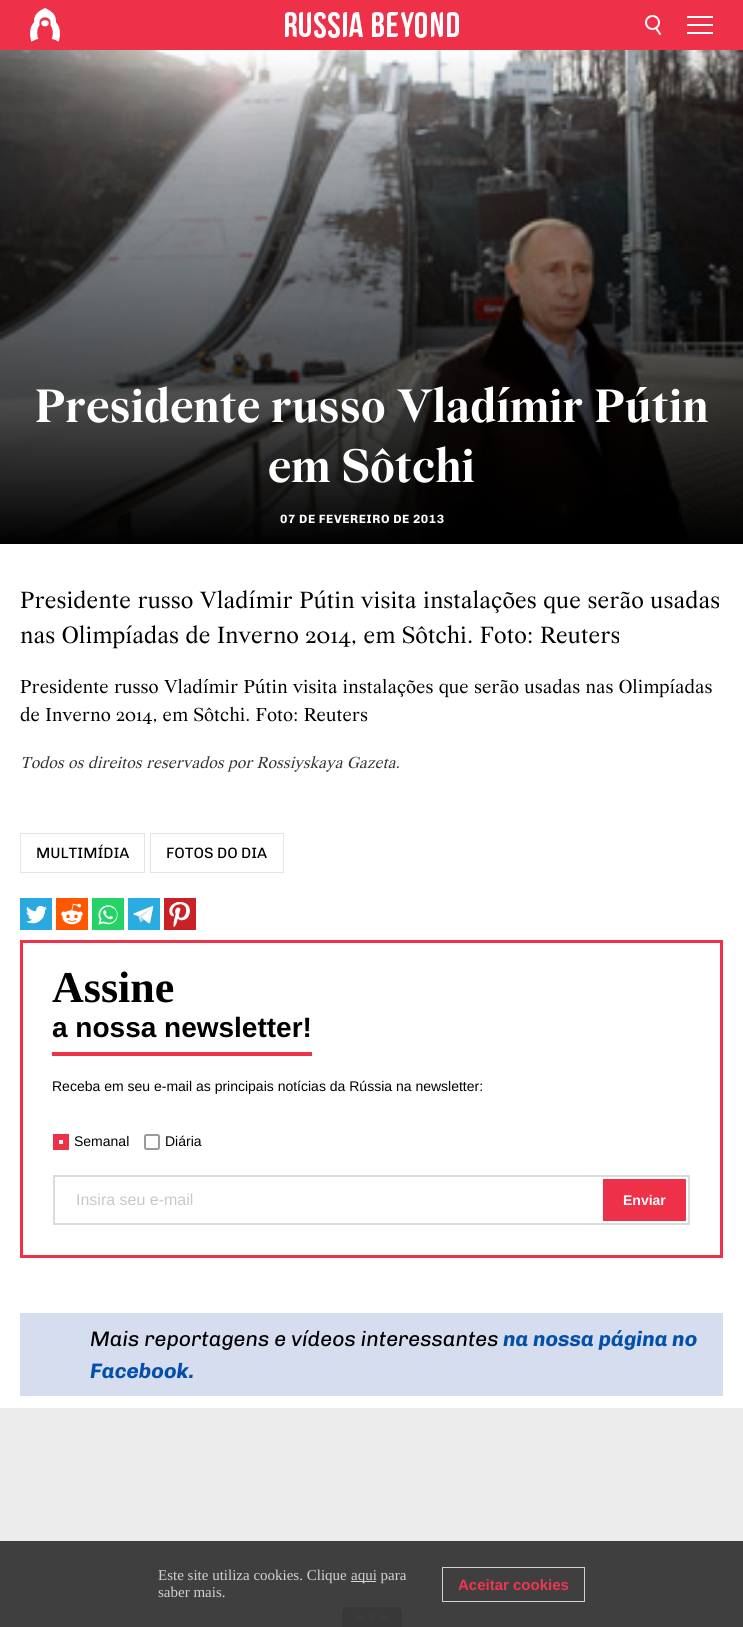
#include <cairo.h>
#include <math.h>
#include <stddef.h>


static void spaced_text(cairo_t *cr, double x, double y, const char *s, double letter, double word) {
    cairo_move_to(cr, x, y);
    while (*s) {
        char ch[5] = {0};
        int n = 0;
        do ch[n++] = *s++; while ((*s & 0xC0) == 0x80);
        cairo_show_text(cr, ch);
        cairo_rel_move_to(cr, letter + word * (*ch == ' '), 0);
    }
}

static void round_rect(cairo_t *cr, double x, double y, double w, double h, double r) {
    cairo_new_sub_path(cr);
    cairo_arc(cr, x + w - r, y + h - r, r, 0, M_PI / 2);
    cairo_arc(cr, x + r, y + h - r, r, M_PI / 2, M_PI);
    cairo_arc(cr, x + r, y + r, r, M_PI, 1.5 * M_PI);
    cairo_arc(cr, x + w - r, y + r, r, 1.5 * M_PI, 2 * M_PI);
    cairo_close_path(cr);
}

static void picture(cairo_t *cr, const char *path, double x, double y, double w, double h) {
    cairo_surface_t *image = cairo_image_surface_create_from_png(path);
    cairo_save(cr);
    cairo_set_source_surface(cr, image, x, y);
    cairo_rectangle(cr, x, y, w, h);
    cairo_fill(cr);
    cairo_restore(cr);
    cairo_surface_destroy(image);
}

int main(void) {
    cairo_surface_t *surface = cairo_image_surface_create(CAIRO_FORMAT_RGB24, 743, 1627);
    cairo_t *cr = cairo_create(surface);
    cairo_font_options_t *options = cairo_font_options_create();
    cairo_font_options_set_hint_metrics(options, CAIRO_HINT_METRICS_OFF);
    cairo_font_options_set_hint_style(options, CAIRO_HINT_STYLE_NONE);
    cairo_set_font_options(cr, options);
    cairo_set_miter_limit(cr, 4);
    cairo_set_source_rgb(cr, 0.925, 0.925, 0.925);
    cairo_paint(cr);
    cairo_set_source_rgb(cr, 0.247, 0.247, 0.247);
    cairo_rectangle(cr, 0, 1541, 743, 86);
    cairo_fill(cr);
    cairo_set_source_rgb(cr, 0.933, 0.188, 0.282);
    cairo_rectangle(cr, 0, 0, 743, 50);
    cairo_fill(cr);
    picture(cr, "img1.png", 30, 8, 30, 34);
    picture(cr, "img2.png", 285, 12, 174, 26);
    cairo_arc(cr, 652.5, 22.5, 6.5, 0, 2 * M_PI);
    cairo_set_source_rgb(cr, 1, 1, 1);
    cairo_stroke(cr);
    cairo_new_path(cr);
    cairo_move_to(cr, 656, 28);
    cairo_line_to(cr, 660, 34);
    cairo_set_line_cap(cr, CAIRO_LINE_CAP_ROUND);
    cairo_stroke(cr);
    picture(cr, "img3.png", 687, 16, 26, 18);
    cairo_rectangle(cr, 0, 544, 743, 864);
    cairo_fill(cr);
    picture(cr, "img4.png", 0, 50, 743, 494);
    cairo_select_font_face(cr, "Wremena", CAIRO_FONT_SLANT_NORMAL, CAIRO_FONT_WEIGHT_BOLD);
    cairo_set_font_size(cr, 50);
    cairo_move_to(cr, 35, 422);
    cairo_show_text(cr, "Presidente russo Vladímir Pútin");
    cairo_move_to(cr, 268, 482);
    cairo_show_text(cr, "em Sôtchi");
    cairo_select_font_face(cr, "Chivo", CAIRO_FONT_SLANT_NORMAL, CAIRO_FONT_WEIGHT_BOLD);
    cairo_set_font_size(cr, 12);
    spaced_text(cr, 280, 523, "07 DE FEVEREIRO DE 2013", 0.6, 0);
    cairo_select_font_face(cr, "Wremena", CAIRO_FONT_SLANT_NORMAL, CAIRO_FONT_WEIGHT_NORMAL);
    cairo_set_font_size(cr, 25);
    cairo_set_source_rgb(cr, 0, 0, 0);
    cairo_move_to(cr, 20, 608);
    cairo_show_text(cr, "Presidente russo Vladímir Pútin visita instalações que serão usadas");
    cairo_move_to(cr, 20, 643);
    cairo_show_text(cr, "nas Olimpíadas de Inverno 2014, em Sôtchi. Foto: Reuters");
    cairo_set_font_size(cr, 20);
    cairo_move_to(cr, 20, 693);
    cairo_show_text(cr, "Presidente russo Vladímir Pútin visita instalações que serão usadas nas Olimpíadas");
    cairo_move_to(cr, 20, 721);
    cairo_show_text(cr, "de Inverno 2014, em Sôtchi. Foto: Reuters");
    cairo_select_font_face(cr, "Wremena", CAIRO_FONT_SLANT_ITALIC, CAIRO_FONT_WEIGHT_NORMAL);
    cairo_set_font_size(cr, 17);
    cairo_set_source_rgb(cr, 0.2, 0.2, 0.2);
    cairo_move_to(cr, 20, 768);
    cairo_show_text(cr, "Todos os direitos reservados por Rossiyskaya Gazeta.");
    cairo_rectangle(cr, 20.5, 833.5, 124, 39);
    cairo_set_source_rgb(cr, 0.894, 0.894, 0.894);
    cairo_set_line_width(cr, 1);
    cairo_set_line_cap(cr, CAIRO_LINE_CAP_BUTT);
    cairo_stroke(cr);
    cairo_select_font_face(cr, "Chivo", CAIRO_FONT_SLANT_NORMAL, CAIRO_FONT_WEIGHT_NORMAL);
    cairo_set_font_size(cr, 15);
    cairo_set_source_rgb(cr, 0, 0, 0);
    cairo_move_to(cr, 36, 858);
    cairo_show_text(cr, "MULTIMÍDIA");
    cairo_rectangle(cr, 150.5, 833.5, 133, 39);
    cairo_set_source_rgb(cr, 0.894, 0.894, 0.894);
    cairo_stroke(cr);
    cairo_set_source_rgb(cr, 0, 0, 0);
    cairo_move_to(cr, 166, 858);
    cairo_show_text(cr, "FOTOS DO DIA");
    picture(cr, "img5.png", 20, 898, 32, 32);
    picture(cr, "img6.png", 56, 898, 32, 32);
    picture(cr, "img7.png", 92, 898, 32, 32);
    picture(cr, "img8.png", 128, 898, 32, 32);
    picture(cr, "img9.png", 164, 898, 32, 32);
    cairo_rectangle(cr, 21.5, 941.5, 700, 315);
    cairo_set_source_rgb(cr, 0.933, 0.188, 0.282);
    cairo_set_line_width(cr, 3);
    cairo_stroke(cr);
    cairo_rectangle(cr, 52, 1052, 260, 4);
    cairo_fill(cr);
    cairo_select_font_face(cr, "Liberation Serif", CAIRO_FONT_SLANT_NORMAL, CAIRO_FONT_WEIGHT_BOLD);
    cairo_set_font_size(cr, 44);
    cairo_set_source_rgb(cr, 0, 0, 0);
    cairo_move_to(cr, 52, 1002);
    cairo_show_text(cr, "Assine");
    cairo_select_font_face(cr, "Liberation Sans", CAIRO_FONT_SLANT_NORMAL, CAIRO_FONT_WEIGHT_BOLD);
    cairo_set_font_size(cr, 28);
    cairo_move_to(cr, 52, 1037);
    cairo_show_text(cr, "a nossa newsletter!");
    cairo_select_font_face(cr, "Liberation Sans", CAIRO_FONT_SLANT_NORMAL, CAIRO_FONT_WEIGHT_NORMAL);
    cairo_set_font_size(cr, 14);
    cairo_move_to(cr, 52, 1091);
    cairo_show_text(cr, "Receba em seu e-mail as principais notícias da Rússia na newsletter:");
    cairo_new_path(cr);
    cairo_move_to(cr, 56, 1137);
    cairo_line_to(cr, 66, 1137);
    cairo_line_to(cr, 66, 1147);
    cairo_line_to(cr, 56, 1147);
    cairo_close_path(cr);
    cairo_set_source_rgb(cr, 0.933, 0.188, 0.282);
    cairo_set_line_width(cr, 6);
    cairo_stroke(cr);
    cairo_set_source_rgb(cr, 0, 0, 0);
    cairo_move_to(cr, 74, 1146);
    cairo_show_text(cr, "Semanal");
    round_rect(cr, 145, 1135, 14, 14, 1.5);
    cairo_set_source_rgb(cr, 0.6, 0.6, 0.6);
    cairo_set_line_width(cr, 2);
    cairo_stroke(cr);
    cairo_set_source_rgb(cr, 0, 0, 0);
    cairo_move_to(cr, 165, 1146);
    cairo_show_text(cr, "Diária");
    cairo_rectangle(cr, 54, 1176, 635, 48);
    cairo_set_source_rgb(cr, 0.863, 0.863, 0.863);
    cairo_stroke(cr);
    cairo_set_font_size(cr, 16);
    cairo_set_source_rgb(cr, 0.784, 0.784, 0.784);
    cairo_move_to(cr, 76, 1205);
    cairo_show_text(cr, "Insira seu e-mail");
    cairo_set_source_rgb(cr, 0.933, 0.188, 0.282);
    cairo_rectangle(cr, 603, 1179, 83, 42);
    cairo_fill(cr);
    cairo_select_font_face(cr, "Liberation Sans", CAIRO_FONT_SLANT_NORMAL, CAIRO_FONT_WEIGHT_BOLD);
    cairo_set_font_size(cr, 14);
    cairo_set_source_rgb(cr, 1, 1, 1);
    cairo_move_to(cr, 623, 1205);
    cairo_show_text(cr, "Enviar");
    cairo_set_source_rgb(cr, 0.835, 0.867, 0.937);
    cairo_rectangle(cr, 20, 1313, 703, 83);
    cairo_fill(cr);
    cairo_select_font_face(cr, "Chivo", CAIRO_FONT_SLANT_ITALIC, CAIRO_FONT_WEIGHT_NORMAL);
    cairo_set_font_size(cr, 21);
    cairo_set_source_rgb(cr, 0, 0, 0);
    cairo_move_to(cr, 90, 1346);
    cairo_show_text(cr, "Mais reportagens e vídeos interessantes");
    cairo_select_font_face(cr, "Chivo", CAIRO_FONT_SLANT_ITALIC, CAIRO_FONT_WEIGHT_BOLD);
    cairo_set_source_rgb(cr, 0.016, 0.31, 0.667);
    cairo_move_to(cr, 503, 1346);
    cairo_show_text(cr, "na nossa página no");
    cairo_move_to(cr, 90, 1378);
    cairo_show_text(cr, "Facebook.");
    cairo_set_source_rgb(cr, 0.22, 0.22, 0.22);
    cairo_new_path(cr);
    cairo_move_to(cr, 348, 1607);
    cairo_line_to(cr, 396, 1607);
    cairo_curve_to(cr, 399.5, 1607, 402, 1609.5, 402, 1613);
    cairo_line_to(cr, 402, 1627);
    cairo_line_to(cr, 342, 1627);
    cairo_line_to(cr, 342, 1613);
    cairo_curve_to(cr, 342, 1609.5, 344.5, 1607, 348, 1607);
    cairo_close_path(cr);
    cairo_fill(cr);
    cairo_set_source_rgb(cr, 0.247, 0.227, 0.227);
    cairo_arc(cr, 359.5, 1617.5, 3.5, 0, 2 * M_PI);
    cairo_fill(cr);
    cairo_arc(cr, 371.5, 1617.5, 3.5, 0, 2 * M_PI);
    cairo_fill(cr);
    cairo_arc(cr, 383.5, 1617.5, 3.5, 0, 2 * M_PI);
    cairo_fill(cr);
    cairo_select_font_face(cr, "Liberation Serif", CAIRO_FONT_SLANT_NORMAL, CAIRO_FONT_WEIGHT_NORMAL);
    cairo_set_font_size(cr, 15);
    cairo_set_source_rgb(cr, 0.824, 0.824, 0.824);
    cairo_move_to(cr, 158, 1580);
    cairo_show_text(cr, "Este site utiliza cookies. Clique");
    cairo_rectangle(cr, 351, 1581, 25, 1);
    cairo_fill(cr);
    cairo_move_to(cr, 351, 1580);
    cairo_show_text(cr, "aqui para");
    cairo_move_to(cr, 158, 1597);
    cairo_show_text(cr, "saber mais.");
    cairo_rectangle(cr, 442.5, 1567.5, 142, 34);
    cairo_set_line_width(cr, 1);
    cairo_stroke(cr);
    cairo_select_font_face(cr, "Liberation Sans", CAIRO_FONT_SLANT_NORMAL, CAIRO_FONT_WEIGHT_BOLD);
    cairo_set_source_rgb(cr, 0.933, 0.212, 0.302);
    cairo_move_to(cr, 458, 1590);
    cairo_show_text(cr, "Aceitar cookies");
    cairo_surface_write_to_png(surface, "page.png");
    cairo_font_options_destroy(options);
    cairo_destroy(cr);
    cairo_surface_destroy(surface);
    return 0;
}
